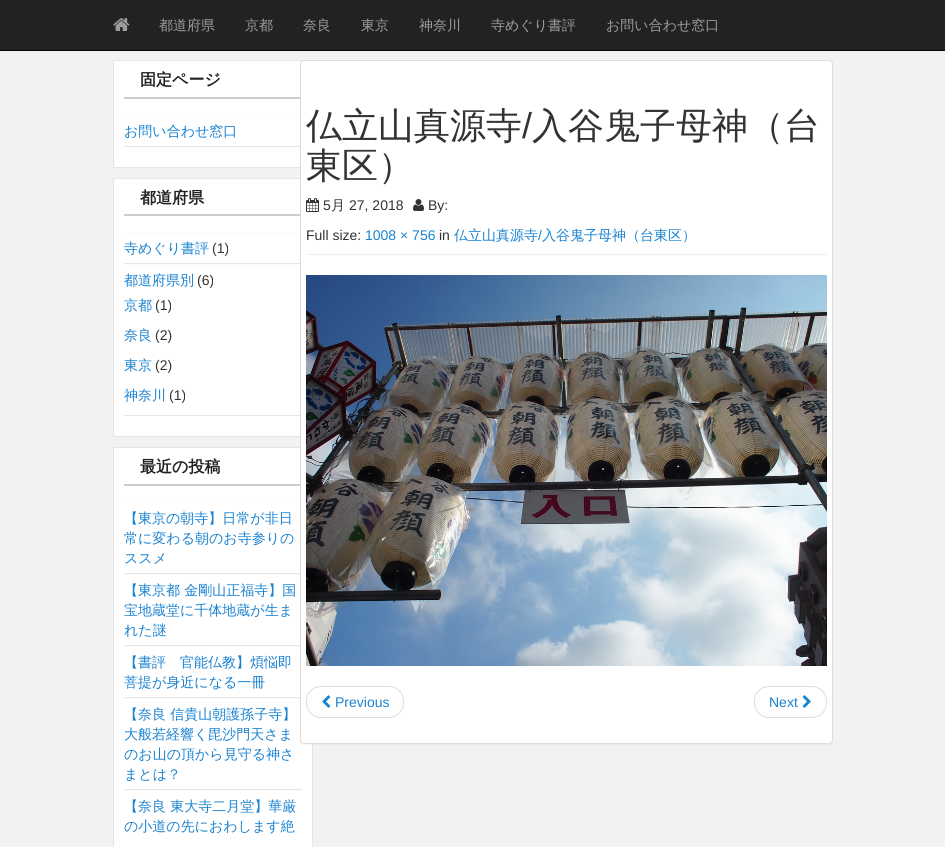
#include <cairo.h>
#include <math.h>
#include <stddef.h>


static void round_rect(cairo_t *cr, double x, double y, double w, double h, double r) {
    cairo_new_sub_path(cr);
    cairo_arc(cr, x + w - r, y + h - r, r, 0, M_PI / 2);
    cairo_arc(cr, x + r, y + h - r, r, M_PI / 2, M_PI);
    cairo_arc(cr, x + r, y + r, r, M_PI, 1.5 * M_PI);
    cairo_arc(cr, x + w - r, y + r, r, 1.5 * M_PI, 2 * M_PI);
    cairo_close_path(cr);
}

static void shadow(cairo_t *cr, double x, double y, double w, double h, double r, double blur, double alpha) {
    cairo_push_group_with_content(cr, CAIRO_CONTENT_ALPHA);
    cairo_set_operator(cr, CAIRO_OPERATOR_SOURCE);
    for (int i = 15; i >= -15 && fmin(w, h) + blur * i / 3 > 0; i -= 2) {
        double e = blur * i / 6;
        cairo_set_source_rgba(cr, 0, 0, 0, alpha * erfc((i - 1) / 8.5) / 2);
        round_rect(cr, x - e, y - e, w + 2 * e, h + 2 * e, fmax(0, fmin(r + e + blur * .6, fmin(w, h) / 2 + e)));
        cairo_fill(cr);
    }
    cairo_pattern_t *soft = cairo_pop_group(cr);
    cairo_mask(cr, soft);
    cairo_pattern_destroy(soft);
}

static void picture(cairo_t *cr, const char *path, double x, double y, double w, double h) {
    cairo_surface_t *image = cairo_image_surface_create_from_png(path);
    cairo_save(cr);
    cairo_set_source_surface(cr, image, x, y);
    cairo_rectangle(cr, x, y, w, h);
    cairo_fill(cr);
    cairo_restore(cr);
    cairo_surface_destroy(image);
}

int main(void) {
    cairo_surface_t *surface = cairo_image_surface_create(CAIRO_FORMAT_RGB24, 945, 847);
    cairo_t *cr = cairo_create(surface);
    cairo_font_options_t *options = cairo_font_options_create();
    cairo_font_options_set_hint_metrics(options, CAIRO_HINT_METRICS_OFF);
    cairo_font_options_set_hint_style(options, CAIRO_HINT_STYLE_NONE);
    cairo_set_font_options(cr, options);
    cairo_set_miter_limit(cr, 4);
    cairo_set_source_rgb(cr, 0.949, 0.949, 0.949);
    cairo_paint(cr);
    cairo_set_source_rgb(cr, 0.133, 0.133, 0.133);
    cairo_rectangle(cr, 0, 0, 945, 50);
    cairo_fill(cr);
    cairo_set_source_rgb(cr, 0.031, 0.031, 0.031);
    cairo_rectangle(cr, 0, 50, 945, 1);
    cairo_fill(cr);
    picture(cr, "img1.png", 113, 18, 17, 13);
    cairo_select_font_face(cr, "WenQuanYi Zen Hei Medium", CAIRO_FONT_SLANT_NORMAL, CAIRO_FONT_WEIGHT_NORMAL);
    cairo_set_font_size(cr, 14);
    cairo_set_source_rgb(cr, 0.616, 0.616, 0.616);
    cairo_move_to(cr, 159, 30);
    cairo_show_text(cr, "都道府県");
    cairo_move_to(cr, 245, 30);
    cairo_show_text(cr, "京都");
    cairo_move_to(cr, 303, 30);
    cairo_show_text(cr, "奈良");
    cairo_move_to(cr, 361, 30);
    cairo_show_text(cr, "東京");
    cairo_move_to(cr, 419, 30);
    cairo_show_text(cr, "神奈川");
    cairo_move_to(cr, 491, 30);
    cairo_show_text(cr, "寺めぐり書評");
    cairo_move_to(cr, 606, 30);
    cairo_show_text(cr, "お問い合わせ窓口");
    cairo_set_source_rgb(cr, 1, 1, 1);
    cairo_rectangle(cr, 114, 61, 188, 106);
    cairo_fill(cr);
    cairo_rectangle(cr, 113.5, 60.5, 199, 107);
    cairo_set_source_rgb(cr, 0.898, 0.898, 0.898);
    cairo_set_line_width(cr, 1);
    cairo_stroke(cr);
    cairo_set_source_rgb(cr, 0.8, 0.8, 0.8);
    cairo_rectangle(cr, 124, 97, 178, 2);
    cairo_fill(cr);
    cairo_select_font_face(cr, "WenQuanYi Zen Hei", CAIRO_FONT_SLANT_NORMAL, CAIRO_FONT_WEIGHT_BOLD);
    cairo_set_font_size(cr, 16);
    cairo_set_source_rgb(cr, 0.133, 0.133, 0.133);
    cairo_move_to(cr, 140, 85);
    cairo_show_text(cr, "固定ページ");
    cairo_set_source_rgb(cr, 0.98, 0.98, 0.98);
    cairo_rectangle(cr, 124, 115, 178, 1);
    cairo_fill(cr);
    cairo_set_source_rgb(cr, 0.898, 0.898, 0.898);
    cairo_rectangle(cr, 124, 146, 178, 1);
    cairo_fill(cr);
    cairo_select_font_face(cr, "WenQuanYi Zen Hei Medium", CAIRO_FONT_SLANT_NORMAL, CAIRO_FONT_WEIGHT_NORMAL);
    cairo_set_font_size(cr, 14);
    cairo_set_source_rgb(cr, 0.098, 0.51, 0.82);
    cairo_move_to(cr, 124, 136);
    cairo_show_text(cr, "お問い合わせ窓口");
    cairo_set_source_rgb(cr, 1, 1, 1);
    cairo_rectangle(cr, 114, 179, 186, 257);
    cairo_fill(cr);
    cairo_rectangle(cr, 113.5, 178.5, 199, 258);
    cairo_set_source_rgb(cr, 0.898, 0.898, 0.898);
    cairo_stroke(cr);
    cairo_set_source_rgb(cr, 0.8, 0.8, 0.8);
    cairo_rectangle(cr, 124, 214, 178, 2);
    cairo_fill(cr);
    cairo_select_font_face(cr, "WenQuanYi Zen Hei", CAIRO_FONT_SLANT_NORMAL, CAIRO_FONT_WEIGHT_BOLD);
    cairo_set_font_size(cr, 16);
    cairo_set_source_rgb(cr, 0.133, 0.133, 0.133);
    cairo_move_to(cr, 140, 203);
    cairo_show_text(cr, "都道府県");
    cairo_set_source_rgb(cr, 0.98, 0.98, 0.98);
    cairo_rectangle(cr, 124, 232, 178, 1);
    cairo_fill(cr);
    cairo_set_source_rgb(cr, 0.898, 0.898, 0.898);
    cairo_rectangle(cr, 124, 263, 178, 1);
    cairo_fill(cr);
    cairo_select_font_face(cr, "WenQuanYi Zen Hei Medium", CAIRO_FONT_SLANT_NORMAL, CAIRO_FONT_WEIGHT_NORMAL);
    cairo_set_font_size(cr, 14);
    cairo_set_source_rgb(cr, 0.098, 0.51, 0.82);
    cairo_move_to(cr, 124, 253);
    cairo_show_text(cr, "寺めぐり書評");
    cairo_select_font_face(cr, "Liberation Sans", CAIRO_FONT_SLANT_NORMAL, CAIRO_FONT_WEIGHT_NORMAL);
    cairo_set_source_rgb(cr, 0.2, 0.2, 0.2);
    cairo_move_to(cr, 212, 253);
    cairo_show_text(cr, "(1)");
    cairo_set_source_rgb(cr, 0.98, 0.98, 0.98);
    cairo_rectangle(cr, 124, 264, 178, 1);
    cairo_fill(cr);
    cairo_set_source_rgb(cr, 0.898, 0.898, 0.898);
    cairo_rectangle(cr, 124, 415, 178, 1);
    cairo_fill(cr);
    cairo_select_font_face(cr, "WenQuanYi Zen Hei Medium", CAIRO_FONT_SLANT_NORMAL, CAIRO_FONT_WEIGHT_NORMAL);
    cairo_set_source_rgb(cr, 0.098, 0.51, 0.82);
    cairo_move_to(cr, 124, 285);
    cairo_show_text(cr, "都道府県別");
    cairo_select_font_face(cr, "Liberation Sans", CAIRO_FONT_SLANT_NORMAL, CAIRO_FONT_WEIGHT_NORMAL);
    cairo_set_source_rgb(cr, 0.2, 0.2, 0.2);
    cairo_move_to(cr, 197, 285);
    cairo_show_text(cr, "(6)");
    cairo_select_font_face(cr, "WenQuanYi Zen Hei Medium", CAIRO_FONT_SLANT_NORMAL, CAIRO_FONT_WEIGHT_NORMAL);
    cairo_set_source_rgb(cr, 0.098, 0.51, 0.82);
    cairo_move_to(cr, 124, 310);
    cairo_show_text(cr, "京都");
    cairo_select_font_face(cr, "Liberation Sans", CAIRO_FONT_SLANT_NORMAL, CAIRO_FONT_WEIGHT_NORMAL);
    cairo_set_source_rgb(cr, 0.2, 0.2, 0.2);
    cairo_move_to(cr, 155, 310);
    cairo_show_text(cr, "(1)");
    cairo_select_font_face(cr, "WenQuanYi Zen Hei Medium", CAIRO_FONT_SLANT_NORMAL, CAIRO_FONT_WEIGHT_NORMAL);
    cairo_set_source_rgb(cr, 0.098, 0.51, 0.82);
    cairo_move_to(cr, 124, 340);
    cairo_show_text(cr, "奈良");
    cairo_select_font_face(cr, "Liberation Sans", CAIRO_FONT_SLANT_NORMAL, CAIRO_FONT_WEIGHT_NORMAL);
    cairo_set_source_rgb(cr, 0.2, 0.2, 0.2);
    cairo_move_to(cr, 155, 340);
    cairo_show_text(cr, "(2)");
    cairo_select_font_face(cr, "WenQuanYi Zen Hei Medium", CAIRO_FONT_SLANT_NORMAL, CAIRO_FONT_WEIGHT_NORMAL);
    cairo_set_source_rgb(cr, 0.098, 0.51, 0.82);
    cairo_move_to(cr, 124, 370);
    cairo_show_text(cr, "東京");
    cairo_select_font_face(cr, "Liberation Sans", CAIRO_FONT_SLANT_NORMAL, CAIRO_FONT_WEIGHT_NORMAL);
    cairo_set_source_rgb(cr, 0.2, 0.2, 0.2);
    cairo_move_to(cr, 155, 370);
    cairo_show_text(cr, "(2)");
    cairo_select_font_face(cr, "WenQuanYi Zen Hei Medium", CAIRO_FONT_SLANT_NORMAL, CAIRO_FONT_WEIGHT_NORMAL);
    cairo_set_source_rgb(cr, 0.098, 0.51, 0.82);
    cairo_move_to(cr, 124, 400);
    cairo_show_text(cr, "神奈川");
    cairo_select_font_face(cr, "Liberation Sans", CAIRO_FONT_SLANT_NORMAL, CAIRO_FONT_WEIGHT_NORMAL);
    cairo_set_source_rgb(cr, 0.2, 0.2, 0.2);
    cairo_move_to(cr, 169, 400);
    cairo_show_text(cr, "(1)");
    cairo_set_source_rgb(cr, 1, 1, 1);
    cairo_rectangle(cr, 113.5, 447.5, 199, 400);
    cairo_fill_preserve(cr);
    cairo_set_source_rgb(cr, 0.898, 0.898, 0.898);
    cairo_stroke(cr);
    cairo_set_source_rgb(cr, 0.8, 0.8, 0.8);
    cairo_rectangle(cr, 124, 484, 178, 2);
    cairo_fill(cr);
    cairo_select_font_face(cr, "WenQuanYi Zen Hei", CAIRO_FONT_SLANT_NORMAL, CAIRO_FONT_WEIGHT_BOLD);
    cairo_set_font_size(cr, 16);
    cairo_set_source_rgb(cr, 0.133, 0.133, 0.133);
    cairo_move_to(cr, 140, 472);
    cairo_show_text(cr, "最近の投稿");
    cairo_set_source_rgb(cr, 0.98, 0.98, 0.98);
    cairo_rectangle(cr, 124, 502, 178, 1);
    cairo_fill(cr);
    cairo_set_source_rgb(cr, 0.898, 0.898, 0.898);
    cairo_rectangle(cr, 124, 573, 178, 1);
    cairo_fill(cr);
    cairo_select_font_face(cr, "WenQuanYi Zen Hei Medium", CAIRO_FONT_SLANT_NORMAL, CAIRO_FONT_WEIGHT_NORMAL);
    cairo_set_font_size(cr, 14);
    cairo_set_source_rgb(cr, 0.098, 0.51, 0.82);
    cairo_move_to(cr, 124, 523);
    cairo_show_text(cr, "【東京の朝寺】日常が非日");
    cairo_move_to(cr, 124, 543);
    cairo_show_text(cr, "常に変わる朝のお寺参りの");
    cairo_move_to(cr, 124, 563);
    cairo_show_text(cr, "ススメ");
    cairo_set_source_rgb(cr, 0.98, 0.98, 0.98);
    cairo_rectangle(cr, 124, 574, 178, 1);
    cairo_fill(cr);
    cairo_set_source_rgb(cr, 0.898, 0.898, 0.898);
    cairo_rectangle(cr, 124, 645, 178, 1);
    cairo_fill(cr);
    cairo_set_source_rgb(cr, 0.098, 0.51, 0.82);
    cairo_move_to(cr, 124, 595);
    cairo_show_text(cr, "【東京都 金剛山正福寺】国");
    cairo_move_to(cr, 124, 615);
    cairo_show_text(cr, "宝地蔵堂に千体地蔵が生ま");
    cairo_move_to(cr, 124, 635);
    cairo_show_text(cr, "れた謎");
    cairo_set_source_rgb(cr, 0.98, 0.98, 0.98);
    cairo_rectangle(cr, 124, 646, 178, 1);
    cairo_fill(cr);
    cairo_set_source_rgb(cr, 0.898, 0.898, 0.898);
    cairo_rectangle(cr, 124, 697, 178, 1);
    cairo_fill(cr);
    cairo_set_source_rgb(cr, 0.098, 0.51, 0.82);
    cairo_move_to(cr, 124, 667);
    cairo_show_text(cr, "【書評　官能仏教】煩悩即");
    cairo_move_to(cr, 124, 687);
    cairo_show_text(cr, "菩提が身近になる一冊");
    cairo_set_source_rgb(cr, 0.98, 0.98, 0.98);
    cairo_rectangle(cr, 124, 698, 178, 1);
    cairo_fill(cr);
    cairo_set_source_rgb(cr, 0.898, 0.898, 0.898);
    cairo_rectangle(cr, 124, 789, 178, 1);
    cairo_fill(cr);
    cairo_set_source_rgb(cr, 0.098, 0.51, 0.82);
    cairo_move_to(cr, 124, 719);
    cairo_show_text(cr, "【奈良 信貴山朝護孫子寺】");
    cairo_move_to(cr, 124, 739);
    cairo_show_text(cr, "大般若経響く毘沙門天さま");
    cairo_move_to(cr, 124, 759);
    cairo_show_text(cr, "のお山の頂から見守る神さ");
    cairo_move_to(cr, 124, 779);
    cairo_show_text(cr, "まとは？");
    cairo_set_source_rgb(cr, 0.98, 0.98, 0.98);
    cairo_rectangle(cr, 124, 790, 178, 1);
    cairo_fill(cr);
    cairo_set_source_rgb(cr, 0.098, 0.51, 0.82);
    cairo_move_to(cr, 124, 811);
    cairo_show_text(cr, "【奈良 東大寺二月堂】華厳");
    cairo_move_to(cr, 124, 831);
    cairo_show_text(cr, "の小道の先におわします絶");
    cairo_set_source_rgb(cr, 0, 0, 0);
    shadow(cr, 300, 61, 533, 684, 4, 0.5, 0.05);
    cairo_set_source_rgb(cr, 1, 1, 1);
    round_rect(cr, 300.5, 60.5, 532, 683, 3.5);
    cairo_fill_preserve(cr);
    cairo_set_source_rgb(cr, 0.867, 0.867, 0.867);
    cairo_stroke(cr);
    cairo_set_source_rgb(cr, 0.933, 0.933, 0.933);
    cairo_rectangle(cr, 306, 254, 521, 1);
    cairo_fill(cr);
    cairo_set_font_size(cr, 36);
    cairo_set_source_rgb(cr, 0.2, 0.2, 0.2);
    cairo_move_to(cr, 306, 138);
    cairo_show_text(cr, "仏立山真源寺");
    cairo_select_font_face(cr, "Liberation Sans", CAIRO_FONT_SLANT_NORMAL, CAIRO_FONT_WEIGHT_NORMAL);
    cairo_move_to(cr, 522, 138);
    cairo_show_text(cr, "/");
    cairo_select_font_face(cr, "WenQuanYi Zen Hei Medium", CAIRO_FONT_SLANT_NORMAL, CAIRO_FONT_WEIGHT_NORMAL);
    cairo_move_to(cr, 532, 138);
    cairo_show_text(cr, "入谷鬼子母神（台");
    cairo_move_to(cr, 306, 178);
    cairo_show_text(cr, "東区）");
    picture(cr, "img2.png", 306, 198, 13, 14);
    cairo_select_font_face(cr, "Liberation Sans", CAIRO_FONT_SLANT_NORMAL, CAIRO_FONT_WEIGHT_NORMAL);
    cairo_set_font_size(cr, 14);
    cairo_move_to(cr, 323, 210);
    cairo_show_text(cr, "5");
    cairo_select_font_face(cr, "WenQuanYi Zen Hei Medium", CAIRO_FONT_SLANT_NORMAL, CAIRO_FONT_WEIGHT_NORMAL);
    cairo_move_to(cr, 331, 210);
    cairo_show_text(cr, "月");
    cairo_select_font_face(cr, "Liberation Sans", CAIRO_FONT_SLANT_NORMAL, CAIRO_FONT_WEIGHT_NORMAL);
    cairo_move_to(cr, 349, 210);
    cairo_show_text(cr, "27, 2018");
    picture(cr, "img3.png", 413, 199, 11, 12);
    cairo_move_to(cr, 428, 210);
    cairo_show_text(cr, "By:");
    cairo_move_to(cr, 306, 240);
    cairo_show_text(cr, "Full size:");
    cairo_set_source_rgb(cr, 0.098, 0.51, 0.82);
    cairo_move_to(cr, 365, 240);
    cairo_show_text(cr, "1008 × 756");
    cairo_set_source_rgb(cr, 0.2, 0.2, 0.2);
    cairo_move_to(cr, 439, 240);
    cairo_show_text(cr, "in");
    cairo_select_font_face(cr, "WenQuanYi Zen Hei Medium", CAIRO_FONT_SLANT_NORMAL, CAIRO_FONT_WEIGHT_NORMAL);
    cairo_set_source_rgb(cr, 0.098, 0.51, 0.82);
    cairo_move_to(cr, 454, 240);
    cairo_show_text(cr, "仏立山真源寺");
    cairo_select_font_face(cr, "Liberation Sans", CAIRO_FONT_SLANT_NORMAL, CAIRO_FONT_WEIGHT_NORMAL);
    cairo_move_to(cr, 538, 240);
    cairo_show_text(cr, "/");
    cairo_select_font_face(cr, "WenQuanYi Zen Hei Medium", CAIRO_FONT_SLANT_NORMAL, CAIRO_FONT_WEIGHT_NORMAL);
    cairo_move_to(cr, 542, 240);
    cairo_show_text(cr, "入谷鬼子母神（台東区）");
    picture(cr, "img4.png", 306, 275, 521, 391);
    round_rect(cr, 306.5, 686.5, 97, 31, 14.5);
    cairo_set_source_rgb(cr, 0.867, 0.867, 0.867);
    cairo_stroke(cr);
    picture(cr, "img5.png", 322, 695, 9, 13);
    cairo_select_font_face(cr, "Liberation Sans", CAIRO_FONT_SLANT_NORMAL, CAIRO_FONT_WEIGHT_NORMAL);
    cairo_set_source_rgb(cr, 0.098, 0.51, 0.82);
    cairo_move_to(cr, 335, 707);
    cairo_show_text(cr, "Previous");
    round_rect(cr, 754.5, 686.5, 72, 31, 14.5);
    cairo_set_source_rgb(cr, 0.867, 0.867, 0.867);
    cairo_stroke(cr);
    cairo_set_source_rgb(cr, 0.098, 0.51, 0.82);
    cairo_move_to(cr, 769, 707);
    cairo_show_text(cr, "Next");
    picture(cr, "img6.png", 802, 695, 9, 13);
    cairo_surface_write_to_png(surface, "page.png");
    cairo_font_options_destroy(options);
    cairo_destroy(cr);
    cairo_surface_destroy(surface);
    return 0;
}
